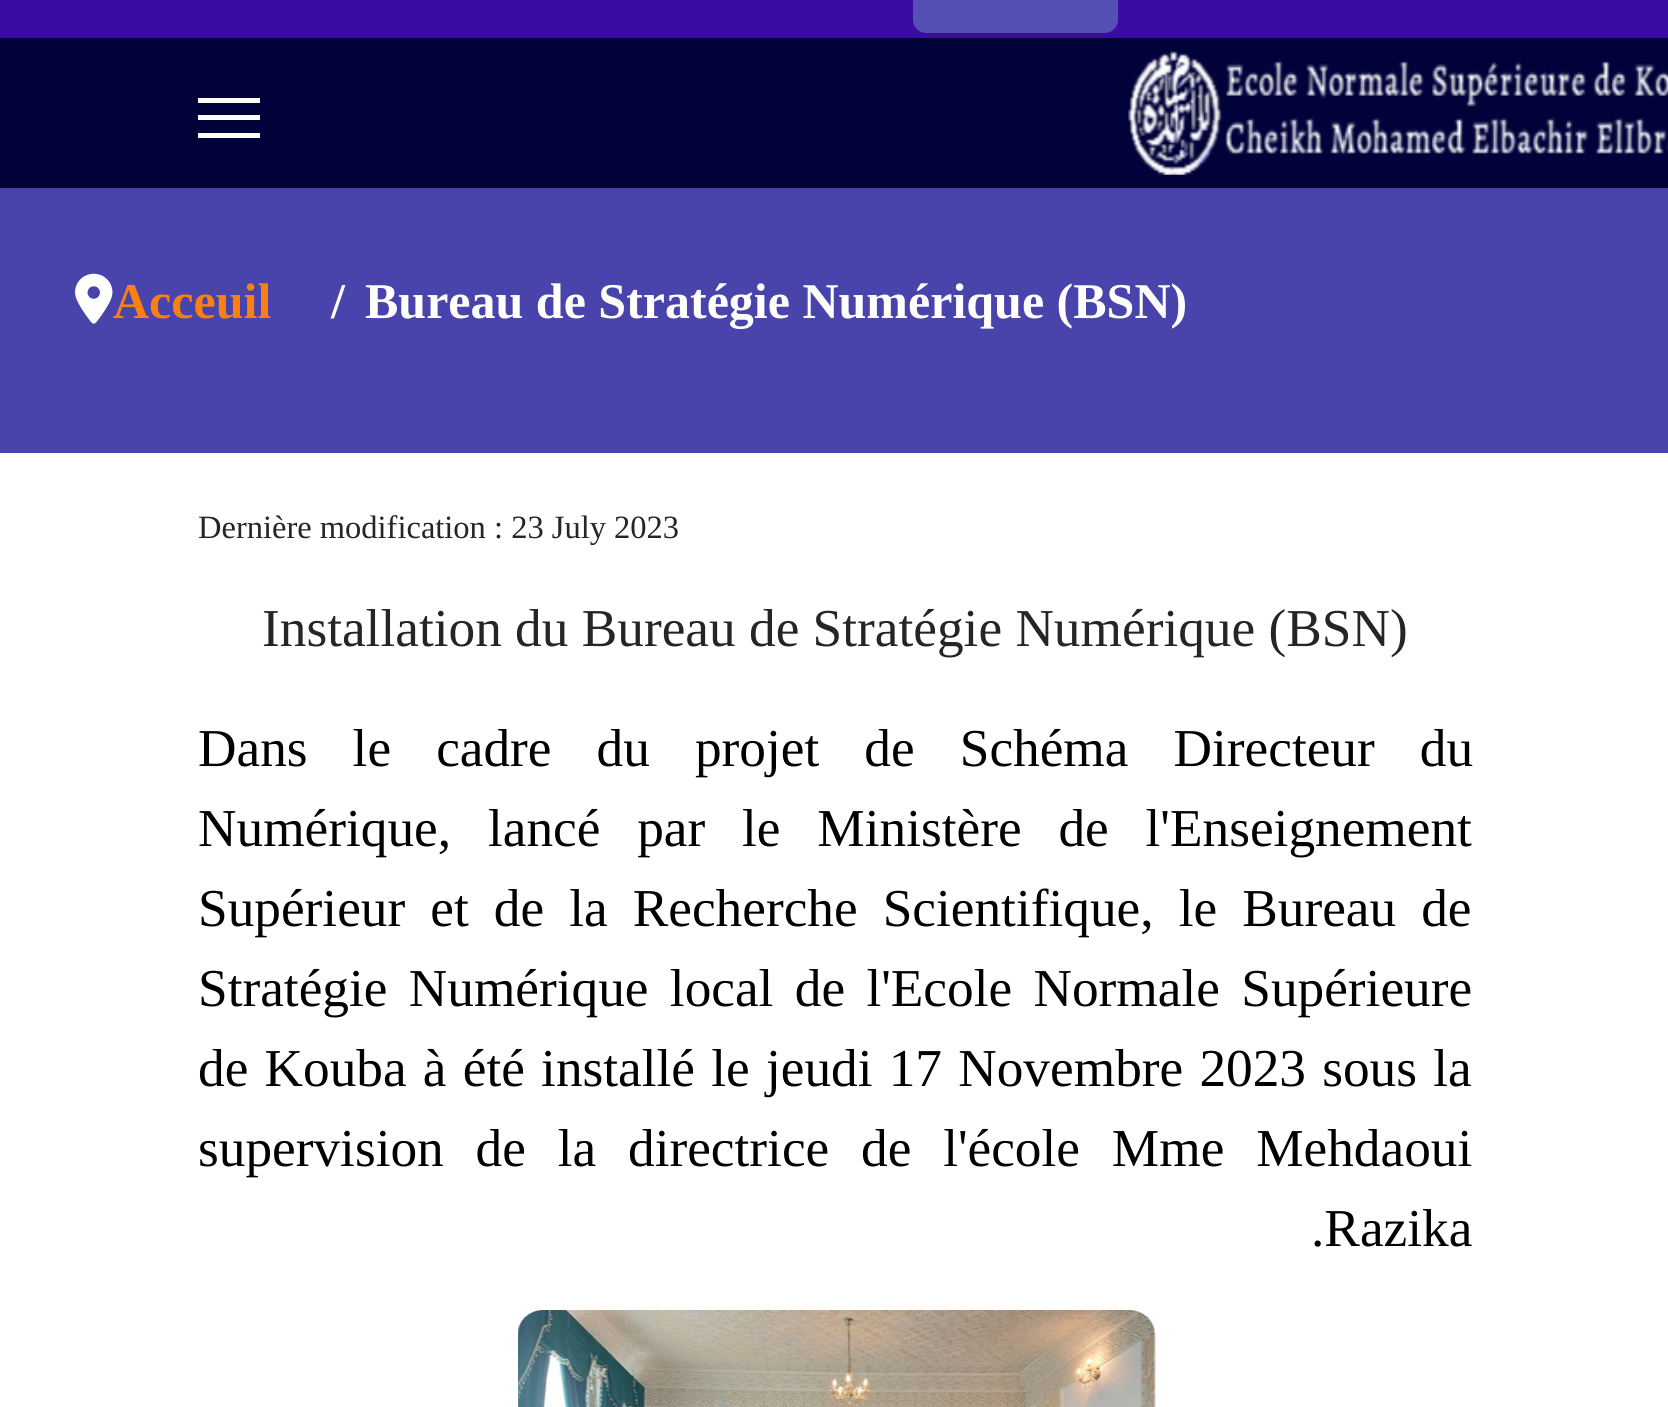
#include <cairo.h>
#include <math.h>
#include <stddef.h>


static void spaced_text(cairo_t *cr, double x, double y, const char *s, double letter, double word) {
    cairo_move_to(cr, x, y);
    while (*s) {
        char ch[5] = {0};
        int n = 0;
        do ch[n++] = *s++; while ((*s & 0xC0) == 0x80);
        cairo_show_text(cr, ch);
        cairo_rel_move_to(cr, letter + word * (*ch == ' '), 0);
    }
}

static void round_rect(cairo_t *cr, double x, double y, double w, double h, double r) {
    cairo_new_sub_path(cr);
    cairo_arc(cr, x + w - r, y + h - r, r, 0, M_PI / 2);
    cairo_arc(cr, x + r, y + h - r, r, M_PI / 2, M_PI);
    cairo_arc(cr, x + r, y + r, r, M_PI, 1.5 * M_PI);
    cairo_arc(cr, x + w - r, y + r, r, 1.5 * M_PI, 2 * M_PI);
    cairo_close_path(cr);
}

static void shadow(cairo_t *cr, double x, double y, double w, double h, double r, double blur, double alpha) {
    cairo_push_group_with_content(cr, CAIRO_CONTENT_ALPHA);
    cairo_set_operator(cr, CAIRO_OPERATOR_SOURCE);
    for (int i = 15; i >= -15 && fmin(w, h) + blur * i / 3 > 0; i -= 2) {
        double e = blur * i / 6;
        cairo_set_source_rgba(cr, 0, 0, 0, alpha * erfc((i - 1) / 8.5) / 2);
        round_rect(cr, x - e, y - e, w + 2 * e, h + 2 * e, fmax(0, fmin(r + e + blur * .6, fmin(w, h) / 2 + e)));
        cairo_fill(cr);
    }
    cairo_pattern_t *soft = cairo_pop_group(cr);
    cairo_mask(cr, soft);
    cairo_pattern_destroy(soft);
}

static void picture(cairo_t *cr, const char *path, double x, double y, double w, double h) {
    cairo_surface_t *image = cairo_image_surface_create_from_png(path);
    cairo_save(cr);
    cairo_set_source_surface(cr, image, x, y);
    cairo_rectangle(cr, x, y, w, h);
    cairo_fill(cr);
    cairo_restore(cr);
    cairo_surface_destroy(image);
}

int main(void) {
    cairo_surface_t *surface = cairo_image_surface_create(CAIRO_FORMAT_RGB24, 1668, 1407);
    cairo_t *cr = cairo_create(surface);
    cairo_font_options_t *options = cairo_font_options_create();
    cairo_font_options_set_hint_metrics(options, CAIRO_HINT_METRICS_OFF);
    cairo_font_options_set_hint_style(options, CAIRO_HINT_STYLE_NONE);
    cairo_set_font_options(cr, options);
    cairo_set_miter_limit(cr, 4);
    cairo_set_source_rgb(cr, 1, 1, 1);
    cairo_paint(cr);
    cairo_set_source_rgb(cr, 0.227, 0.047, 0.639);
    cairo_rectangle(cr, 0, 0, 1668, 38);
    cairo_fill(cr);
    cairo_set_source_rgb(cr, 0.329, 0.31, 0.698);
    cairo_new_path(cr);
    cairo_move_to(cr, 913, 0);
    cairo_line_to(cr, 1118, 0);
    cairo_line_to(cr, 1118, 20);
    cairo_curve_to(cr, 1118, 27, 1112, 33, 1105, 33);
    cairo_line_to(cr, 926, 33);
    cairo_curve_to(cr, 919, 33, 913, 27, 913, 20);
    cairo_close_path(cr);
    cairo_fill(cr);
    cairo_set_source_rgb(cr, 0.286, 0.263, 0.675);
    cairo_rectangle(cr, 0, 188, 1668, 265);
    cairo_fill(cr);
    cairo_set_source_rgb(cr, 0, 0, 0);
    shadow(cr, 0, 38, 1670, 150, 0, 5, 0.1);
    cairo_set_source_rgb(cr, 0.004, 0.008, 0.227);
    cairo_rectangle(cr, 0, 38, 1668, 150);
    cairo_fill(cr);
    cairo_set_source_rgb(cr, 1, 1, 1);
    cairo_rectangle(cr, 198, 98, 62, 5);
    cairo_fill(cr);
    cairo_rectangle(cr, 198, 115, 62, 5);
    cairo_fill(cr);
    cairo_rectangle(cr, 198, 133, 62, 5);
    cairo_fill(cr);
    picture(cr, "img1.png", 1128, 51, 540, 124);
    picture(cr, "img2.png", 75, 273, 38, 51);
    cairo_select_font_face(cr, "Liberation Serif", CAIRO_FONT_SLANT_NORMAL, CAIRO_FONT_WEIGHT_BOLD);
    cairo_set_font_size(cr, 50);
    cairo_set_source_rgb(cr, 0.976, 0.502, 0.071);
    cairo_move_to(cr, 113, 318);
    cairo_show_text(cr, "Acceuil");
    cairo_set_source_rgb(cr, 1, 1, 1);
    cairo_move_to(cr, 331, 318);
    cairo_show_text(cr, "/");
    cairo_move_to(cr, 365, 318);
    cairo_show_text(cr, "Bureau de Stratégie Numérique (BSN)");
    cairo_select_font_face(cr, "Liberation Serif", CAIRO_FONT_SLANT_NORMAL, CAIRO_FONT_WEIGHT_NORMAL);
    cairo_set_font_size(cr, 32.5);
    cairo_set_source_rgb(cr, 0.145, 0.145, 0.145);
    cairo_move_to(cr, 198, 538);
    cairo_show_text(cr, "Dernière modification : 23 July 2023");
    cairo_set_font_size(cr, 53.3);
    cairo_move_to(cr, 262, 646);
    cairo_show_text(cr, "Installation du Bureau de Stratégie Numérique (BSN)");
    cairo_set_source_rgb(cr, 0, 0, 0);
    spaced_text(cr, 198, 766, "Dans le cadre du projet de Schéma Directeur du", 0, 31.75);
    spaced_text(cr, 198, 846, "Numérique, lancé par le Ministère de l'Enseignement", 0, 23.5);
    spaced_text(cr, 198, 926, "Supérieur et de la Recherche Scientifique, le Bureau de", 0, 11.75);
    spaced_text(cr, 198, 1006, "Stratégie Numérique local de l'Ecole Normale Supérieure", 0, 8);
    spaced_text(cr, 198, 1086, "de Kouba à été installé le jeudi 17 Novembre 2023 sous la", 0, 2.9);
    spaced_text(cr, 198, 1166, "supervision de la directrice de l'école Mme Mehdaoui", 0, 18.5);
    cairo_move_to(cr, 1311, 1246);
    cairo_show_text(cr, ".Razika");
    picture(cr, "img3.png", 518, 1310, 638, 97);
    cairo_surface_write_to_png(surface, "page.png");
    cairo_font_options_destroy(options);
    cairo_destroy(cr);
    cairo_surface_destroy(surface);
    return 0;
}
